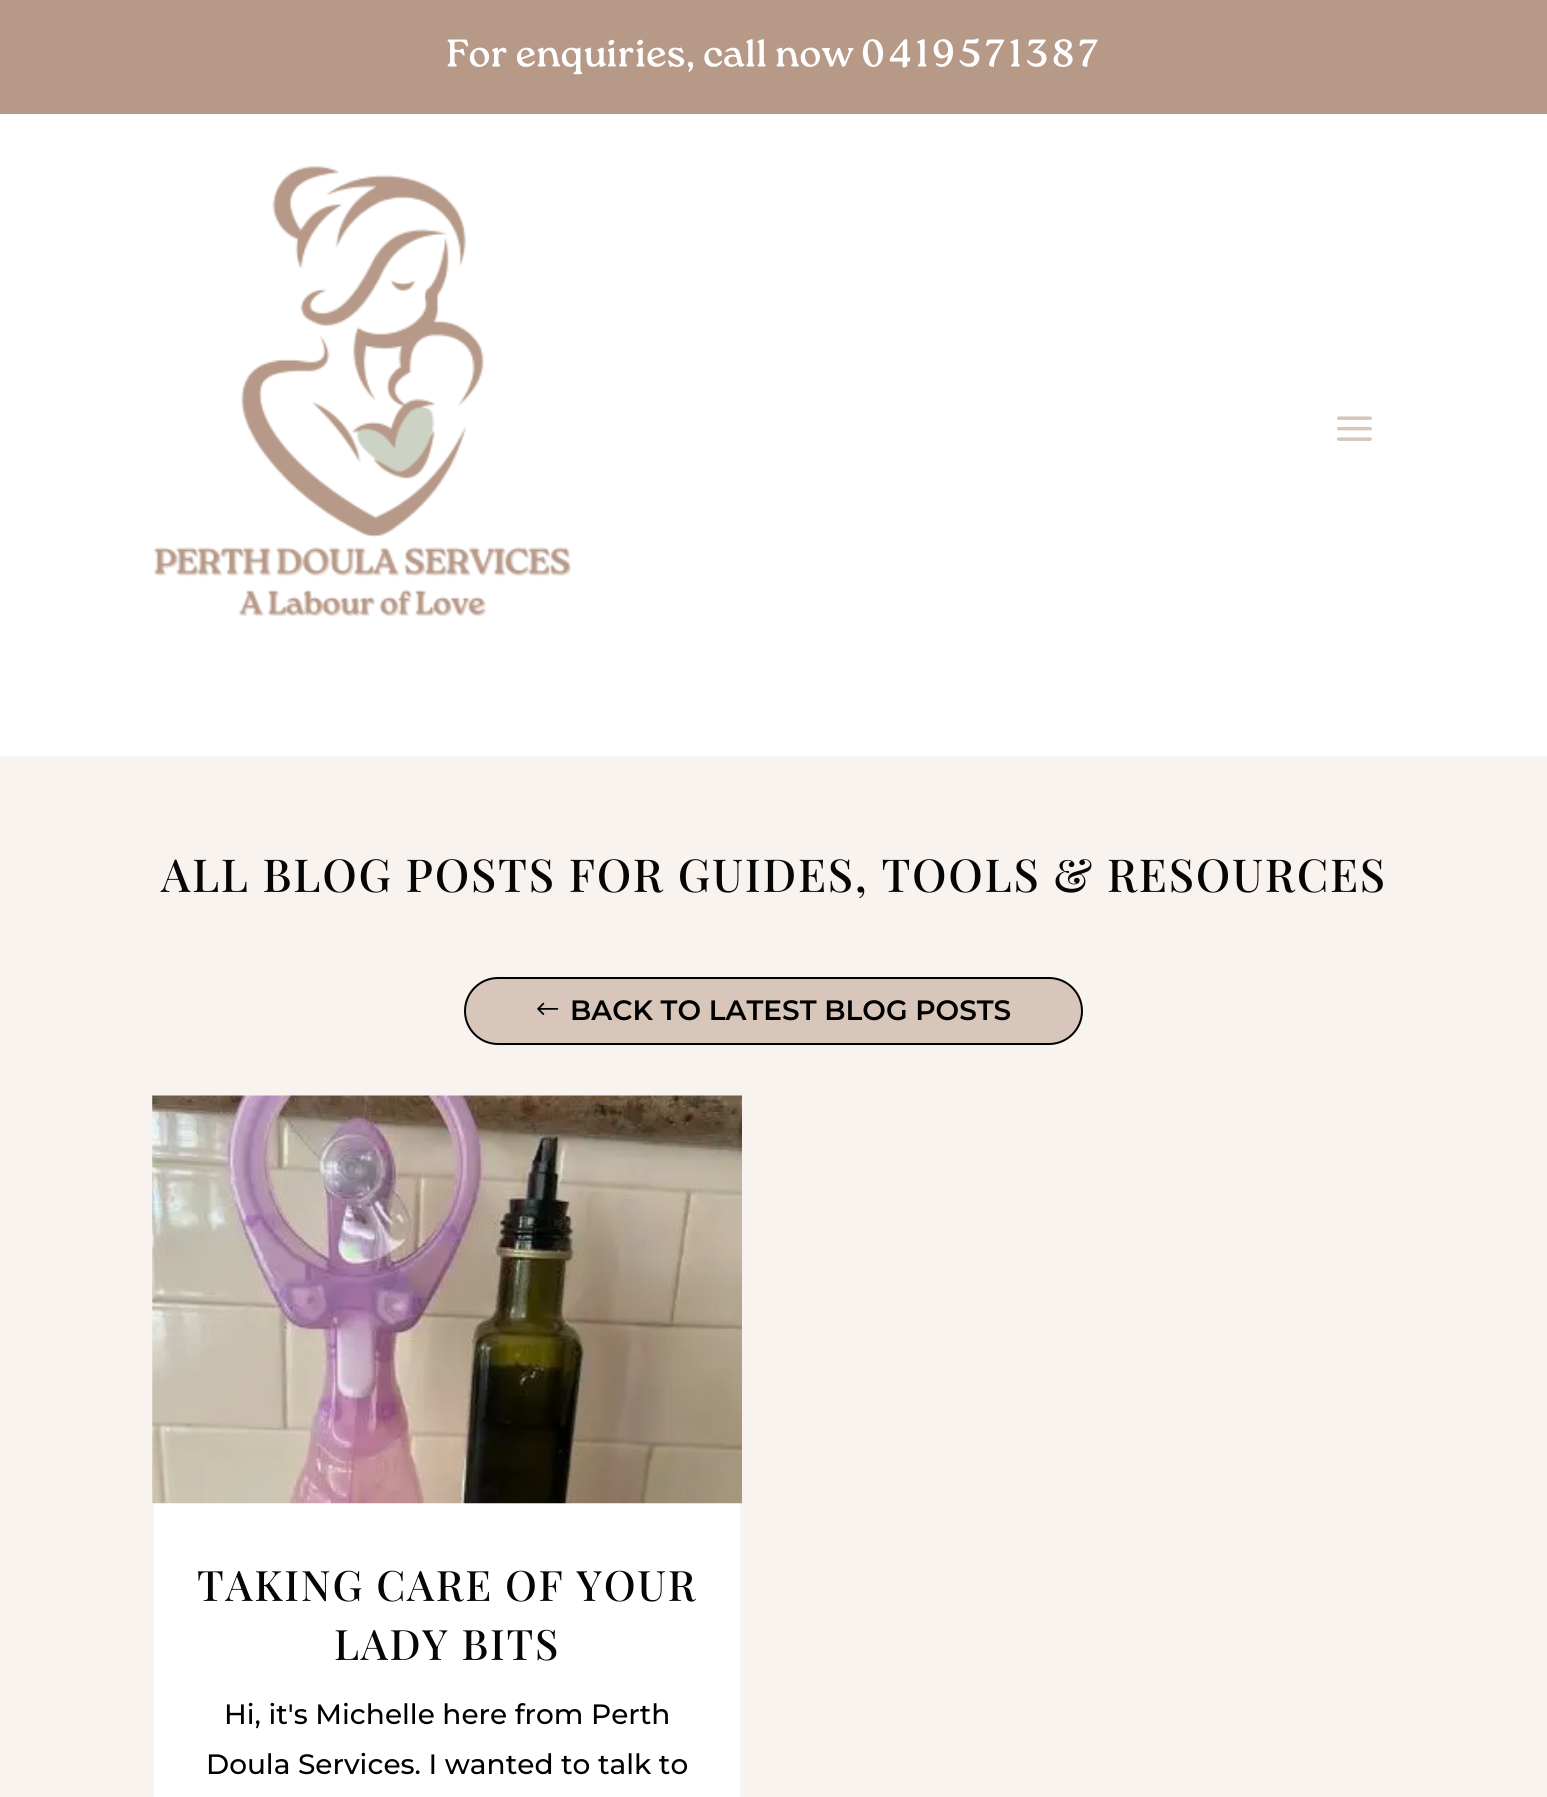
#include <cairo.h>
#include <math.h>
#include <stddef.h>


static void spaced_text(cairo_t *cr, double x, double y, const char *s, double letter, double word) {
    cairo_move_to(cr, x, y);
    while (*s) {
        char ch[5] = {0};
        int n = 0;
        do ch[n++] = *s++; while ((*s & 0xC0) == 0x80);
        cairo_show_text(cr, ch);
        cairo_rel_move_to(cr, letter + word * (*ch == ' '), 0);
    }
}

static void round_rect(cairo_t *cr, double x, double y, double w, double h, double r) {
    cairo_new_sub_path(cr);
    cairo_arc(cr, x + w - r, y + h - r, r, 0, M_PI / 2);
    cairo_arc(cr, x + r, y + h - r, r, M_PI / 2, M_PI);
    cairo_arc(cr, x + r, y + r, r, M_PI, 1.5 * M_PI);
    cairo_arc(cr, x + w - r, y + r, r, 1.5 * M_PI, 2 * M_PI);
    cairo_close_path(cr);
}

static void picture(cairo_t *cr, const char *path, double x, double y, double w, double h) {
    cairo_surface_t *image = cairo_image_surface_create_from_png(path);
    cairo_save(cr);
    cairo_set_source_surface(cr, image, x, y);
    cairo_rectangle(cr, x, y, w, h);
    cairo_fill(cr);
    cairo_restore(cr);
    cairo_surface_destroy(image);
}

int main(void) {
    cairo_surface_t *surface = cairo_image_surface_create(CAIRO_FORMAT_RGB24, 1547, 1797);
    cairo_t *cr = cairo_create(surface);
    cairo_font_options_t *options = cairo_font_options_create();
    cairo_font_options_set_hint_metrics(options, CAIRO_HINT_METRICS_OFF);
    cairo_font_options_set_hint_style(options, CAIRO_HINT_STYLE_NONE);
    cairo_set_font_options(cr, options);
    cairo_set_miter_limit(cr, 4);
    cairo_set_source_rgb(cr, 1, 1, 1);
    cairo_paint(cr);
    cairo_set_source_rgb(cr, 0.718, 0.6, 0.533);
    cairo_rectangle(cr, 0, 0, 1547, 114);
    cairo_fill(cr);
    picture(cr, "img1.png", 447, 39, 407, 36);
    picture(cr, "img2.png", 862, 38, 236, 30);
    picture(cr, "img3.png", 154, 166, 417, 450);
    picture(cr, "img4.png", 1337, 416, 35, 25);
    cairo_set_source_rgb(cr, 0.973, 0.953, 0.937);
    cairo_rectangle(cr, 0, 756, 1547, 1041);
    cairo_fill(cr);
    cairo_select_font_face(cr, "Playfair Display Medium", CAIRO_FONT_SLANT_NORMAL, CAIRO_FONT_WEIGHT_NORMAL);
    cairo_set_font_size(cr, 45.5);
    cairo_set_source_rgb(cr, 0.027, 0.027, 0.027);
    spaced_text(cr, 161, 892, "ALL BLOG POSTS FOR GUIDES, TOOLS & RESOURCES", 1.75, 0);
    cairo_set_source_rgb(cr, 0.843, 0.776, 0.725);
    round_rect(cr, 465, 978, 617, 66, 33);
    cairo_fill_preserve(cr);
    cairo_set_source_rgb(cr, 0, 0, 0);
    cairo_stroke(cr);
    picture(cr, "img5.png", 537, 1002, 22, 13);
    cairo_select_font_face(cr, "Montserrat Thin", CAIRO_FONT_SLANT_NORMAL, CAIRO_FONT_WEIGHT_NORMAL);
    cairo_set_font_size(cr, 28);
    cairo_move_to(cr, 570, 1020);
    cairo_show_text(cr, "BACK TO LATEST BLOG POSTS");
    cairo_set_source_rgb(cr, 1, 1, 1);
    cairo_rectangle(cr, 154, 1503, 586, 294);
    cairo_fill(cr);
    picture(cr, "img6.png", 152, 1095, 590, 409);
    cairo_select_font_face(cr, "Playfair Display Medium", CAIRO_FONT_SLANT_NORMAL, CAIRO_FONT_WEIGHT_NORMAL);
    cairo_set_font_size(cr, 42);
    cairo_set_source_rgb(cr, 0.027, 0.027, 0.027);
    spaced_text(cr, 197, 1601, "TAKING CARE OF YOUR", 1.75, 0);
    spaced_text(cr, 334, 1660, "LADY BITS", 1.75, 0);
    cairo_select_font_face(cr, "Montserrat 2 Thin", CAIRO_FONT_SLANT_NORMAL, CAIRO_FONT_WEIGHT_NORMAL);
    cairo_set_font_size(cr, 28);
    cairo_set_source_rgb(cr, 0, 0, 0);
    cairo_move_to(cr, 224, 1724);
    cairo_show_text(cr, "Hi, it's Michelle here from Perth");
    cairo_move_to(cr, 206, 1774);
    cairo_show_text(cr, "Doula Services. I wanted to talk to");
    cairo_surface_write_to_png(surface, "page.png");
    cairo_font_options_destroy(options);
    cairo_destroy(cr);
    cairo_surface_destroy(surface);
    return 0;
}
